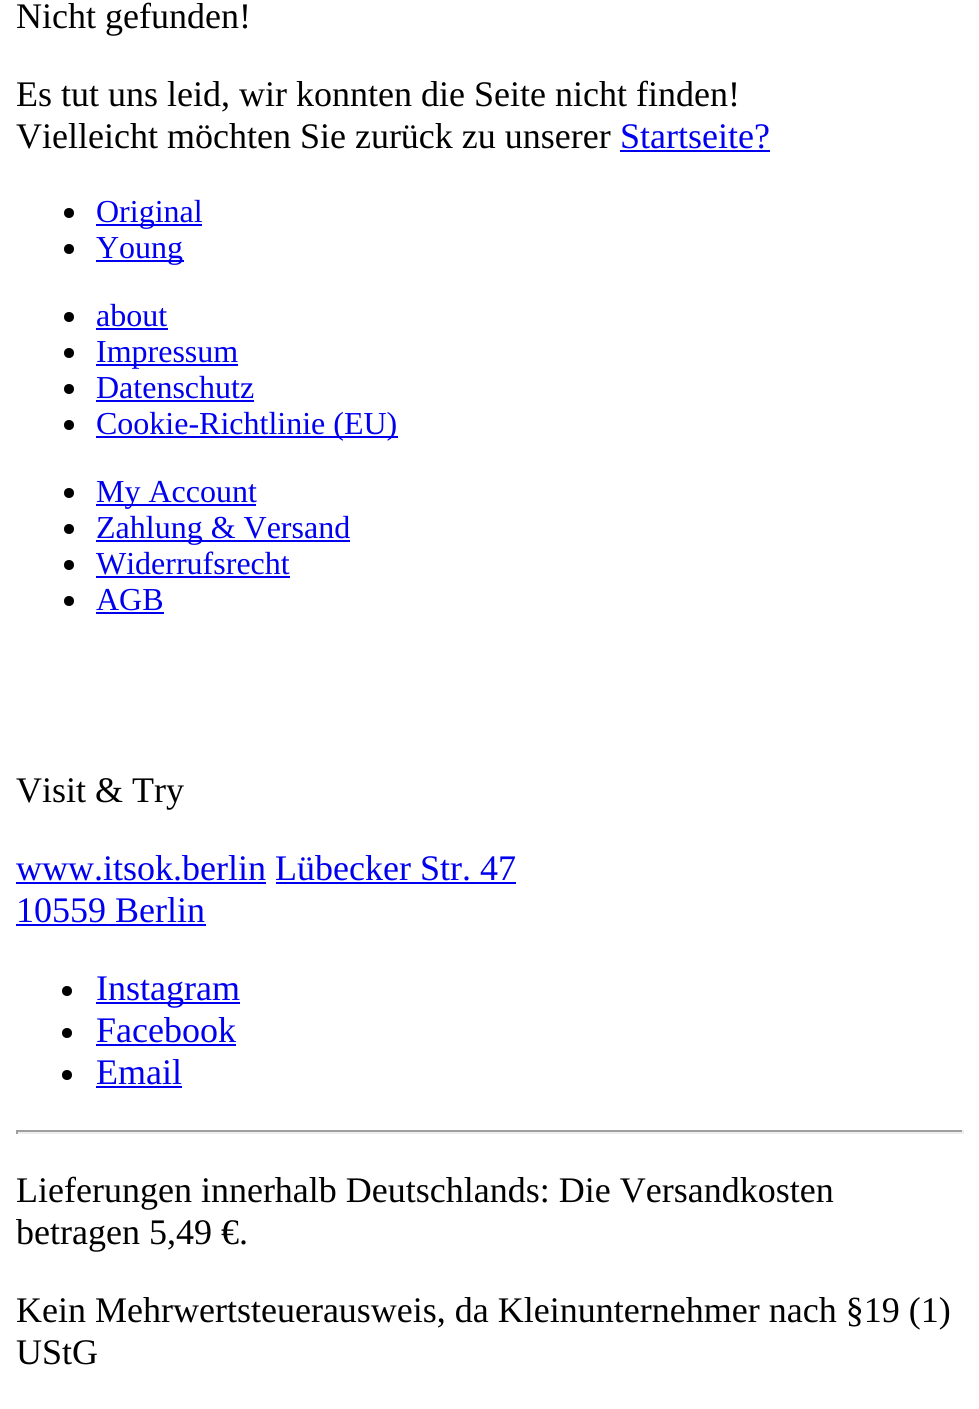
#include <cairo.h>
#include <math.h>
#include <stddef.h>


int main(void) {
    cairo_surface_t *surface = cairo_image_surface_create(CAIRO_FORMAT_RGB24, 979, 1409);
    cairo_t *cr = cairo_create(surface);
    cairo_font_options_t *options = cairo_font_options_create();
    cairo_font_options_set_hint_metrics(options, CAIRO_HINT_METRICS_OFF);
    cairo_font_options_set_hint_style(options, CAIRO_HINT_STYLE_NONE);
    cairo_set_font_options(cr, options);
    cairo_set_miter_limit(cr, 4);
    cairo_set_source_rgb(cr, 1, 1, 1);
    cairo_paint(cr);
    cairo_select_font_face(cr, "Liberation Serif", CAIRO_FONT_SLANT_NORMAL, CAIRO_FONT_WEIGHT_NORMAL);
    cairo_set_font_size(cr, 36);
    cairo_set_source_rgb(cr, 0, 0, 0);
    cairo_move_to(cr, 16, 28);
    cairo_show_text(cr, "Nicht gefunden!");
    cairo_move_to(cr, 16, 106);
    cairo_show_text(cr, "Es tut uns leid, wir konnten die Seite nicht finden!");
    cairo_move_to(cr, 16, 148);
    cairo_show_text(cr, "Vielleicht möchten Sie zurück zu unserer");
    cairo_set_source_rgb(cr, 0, 0, 0.933);
    cairo_move_to(cr, 620, 148);
    cairo_show_text(cr, "Startseite?");
    cairo_rectangle(cr, 620, 150, 150, 2);
    cairo_fill(cr);
    cairo_set_source_rgb(cr, 0, 0, 0);
    cairo_arc(cr, 69, 213, 5, 0, 2 * M_PI);
    cairo_fill(cr);
    cairo_set_source_rgb(cr, 0, 0, 0.933);
    cairo_rectangle(cr, 96, 224, 106, 2);
    cairo_fill(cr);
    cairo_set_font_size(cr, 32);
    cairo_move_to(cr, 96, 222);
    cairo_show_text(cr, "Original");
    cairo_set_source_rgb(cr, 0, 0, 0);
    cairo_new_path(cr);
    cairo_arc(cr, 69, 249, 5, 0, 2 * M_PI);
    cairo_fill(cr);
    cairo_set_source_rgb(cr, 0, 0, 0.933);
    cairo_rectangle(cr, 96, 260, 88, 2);
    cairo_fill(cr);
    cairo_move_to(cr, 96, 258);
    cairo_show_text(cr, "Young");
    cairo_set_source_rgb(cr, 0, 0, 0);
    cairo_new_path(cr);
    cairo_arc(cr, 69, 317, 5, 0, 2 * M_PI);
    cairo_fill(cr);
    cairo_set_source_rgb(cr, 0, 0, 0.933);
    cairo_move_to(cr, 96, 326);
    cairo_show_text(cr, "about");
    cairo_rectangle(cr, 96, 328, 72, 2);
    cairo_fill(cr);
    cairo_set_source_rgb(cr, 0, 0, 0);
    cairo_arc(cr, 69, 353, 5, 0, 2 * M_PI);
    cairo_fill(cr);
    cairo_set_source_rgb(cr, 0, 0, 0.933);
    cairo_rectangle(cr, 96, 364, 142, 2);
    cairo_fill(cr);
    cairo_move_to(cr, 96, 362);
    cairo_show_text(cr, "Impressum");
    cairo_set_source_rgb(cr, 0, 0, 0);
    cairo_new_path(cr);
    cairo_arc(cr, 69, 389, 5, 0, 2 * M_PI);
    cairo_fill(cr);
    cairo_set_source_rgb(cr, 0, 0, 0.933);
    cairo_move_to(cr, 96, 398);
    cairo_show_text(cr, "Datenschutz");
    cairo_rectangle(cr, 96, 400, 158, 2);
    cairo_fill(cr);
    cairo_set_source_rgb(cr, 0, 0, 0);
    cairo_arc(cr, 69, 425, 5, 0, 2 * M_PI);
    cairo_fill(cr);
    cairo_set_source_rgb(cr, 0, 0, 0.933);
    cairo_rectangle(cr, 96, 436, 302, 2);
    cairo_fill(cr);
    cairo_move_to(cr, 96, 434);
    cairo_show_text(cr, "Cookie-Richtlinie (EU)");
    cairo_set_source_rgb(cr, 0, 0, 0);
    cairo_new_path(cr);
    cairo_arc(cr, 69, 493, 5, 0, 2 * M_PI);
    cairo_fill(cr);
    cairo_set_source_rgb(cr, 0, 0, 0.933);
    cairo_rectangle(cr, 96, 504, 160, 2);
    cairo_fill(cr);
    cairo_move_to(cr, 96, 502);
    cairo_show_text(cr, "My Account");
    cairo_set_source_rgb(cr, 0, 0, 0);
    cairo_new_path(cr);
    cairo_arc(cr, 69, 529, 5, 0, 2 * M_PI);
    cairo_fill(cr);
    cairo_set_source_rgb(cr, 0, 0, 0.933);
    cairo_rectangle(cr, 96, 540, 254, 2);
    cairo_fill(cr);
    cairo_move_to(cr, 96, 538);
    cairo_show_text(cr, "Zahlung & Versand");
    cairo_set_source_rgb(cr, 0, 0, 0);
    cairo_new_path(cr);
    cairo_arc(cr, 69, 565, 5, 0, 2 * M_PI);
    cairo_fill(cr);
    cairo_set_source_rgb(cr, 0, 0, 0.933);
    cairo_move_to(cr, 96, 574);
    cairo_show_text(cr, "Widerrufsrecht");
    cairo_rectangle(cr, 96, 576, 194, 2);
    cairo_fill(cr);
    cairo_set_source_rgb(cr, 0, 0, 0);
    cairo_arc(cr, 69, 601, 5, 0, 2 * M_PI);
    cairo_fill(cr);
    cairo_set_source_rgb(cr, 0, 0, 0.933);
    cairo_move_to(cr, 96, 610);
    cairo_show_text(cr, "AGB");
    cairo_rectangle(cr, 96, 612, 68, 2);
    cairo_fill(cr);
    cairo_set_font_size(cr, 36);
    cairo_set_source_rgb(cr, 0, 0, 0);
    cairo_move_to(cr, 16, 802);
    cairo_show_text(cr, "Visit & Try");
    cairo_set_source_rgb(cr, 0, 0, 0.933);
    cairo_move_to(cr, 16, 880);
    cairo_show_text(cr, "www.itsok.berlin Lübecker Str. 47");
    cairo_rectangle(cr, 16, 882, 250, 2);
    cairo_fill(cr);
    cairo_move_to(cr, 16, 922);
    cairo_show_text(cr, "10559 Berlin");
    cairo_rectangle(cr, 276, 882, 240, 2);
    cairo_fill(cr);
    cairo_rectangle(cr, 16, 924, 190, 2);
    cairo_fill(cr);
    cairo_set_source_rgb(cr, 0, 0, 0);
    cairo_arc(cr, 67, 991, 5, 0, 2 * M_PI);
    cairo_fill(cr);
    cairo_set_source_rgb(cr, 0, 0, 0.933);
    cairo_rectangle(cr, 96, 1002, 144, 2);
    cairo_fill(cr);
    cairo_move_to(cr, 96, 1000);
    cairo_show_text(cr, "Instagram");
    cairo_set_source_rgb(cr, 0, 0, 0);
    cairo_new_path(cr);
    cairo_arc(cr, 67, 1033, 5, 0, 2 * M_PI);
    cairo_fill(cr);
    cairo_set_source_rgb(cr, 0, 0, 0.933);
    cairo_move_to(cr, 96, 1042);
    cairo_show_text(cr, "Facebook");
    cairo_rectangle(cr, 96, 1044, 140, 2);
    cairo_fill(cr);
    cairo_set_source_rgb(cr, 0, 0, 0);
    cairo_arc(cr, 67, 1075, 5, 0, 2 * M_PI);
    cairo_fill(cr);
    cairo_set_source_rgb(cr, 0, 0, 0.933);
    cairo_move_to(cr, 96, 1084);
    cairo_show_text(cr, "Email");
    cairo_rectangle(cr, 96, 1086, 86, 2);
    cairo_fill(cr);
    cairo_set_source_rgb(cr, 0.624, 0.624, 0.624);
    cairo_rectangle(cr, 16, 1130, 948, 2);
    cairo_fill(cr);
    cairo_set_source_rgb(cr, 0.933, 0.933, 0.933);
    cairo_rectangle(cr, 962, 1130, 2, 4);
    cairo_fill(cr);
    cairo_rectangle(cr, 16, 1132, 948, 2);
    cairo_fill(cr);
    cairo_set_source_rgb(cr, 0.624, 0.624, 0.624);
    cairo_rectangle(cr, 16, 1130, 2, 4);
    cairo_fill(cr);
    cairo_set_source_rgb(cr, 0, 0, 0);
    cairo_move_to(cr, 16, 1202);
    cairo_show_text(cr, "Lieferungen innerhalb Deutschlands: Die Versandkosten");
    cairo_move_to(cr, 16, 1244);
    cairo_show_text(cr, "betragen 5,49 €.");
    cairo_move_to(cr, 16, 1322);
    cairo_show_text(cr, "Kein Mehrwertsteuerausweis, da Kleinunternehmer nach §19 (1)");
    cairo_move_to(cr, 16, 1364);
    cairo_show_text(cr, "UStG");
    cairo_surface_write_to_png(surface, "page.png");
    cairo_font_options_destroy(options);
    cairo_destroy(cr);
    cairo_surface_destroy(surface);
    return 0;
}
